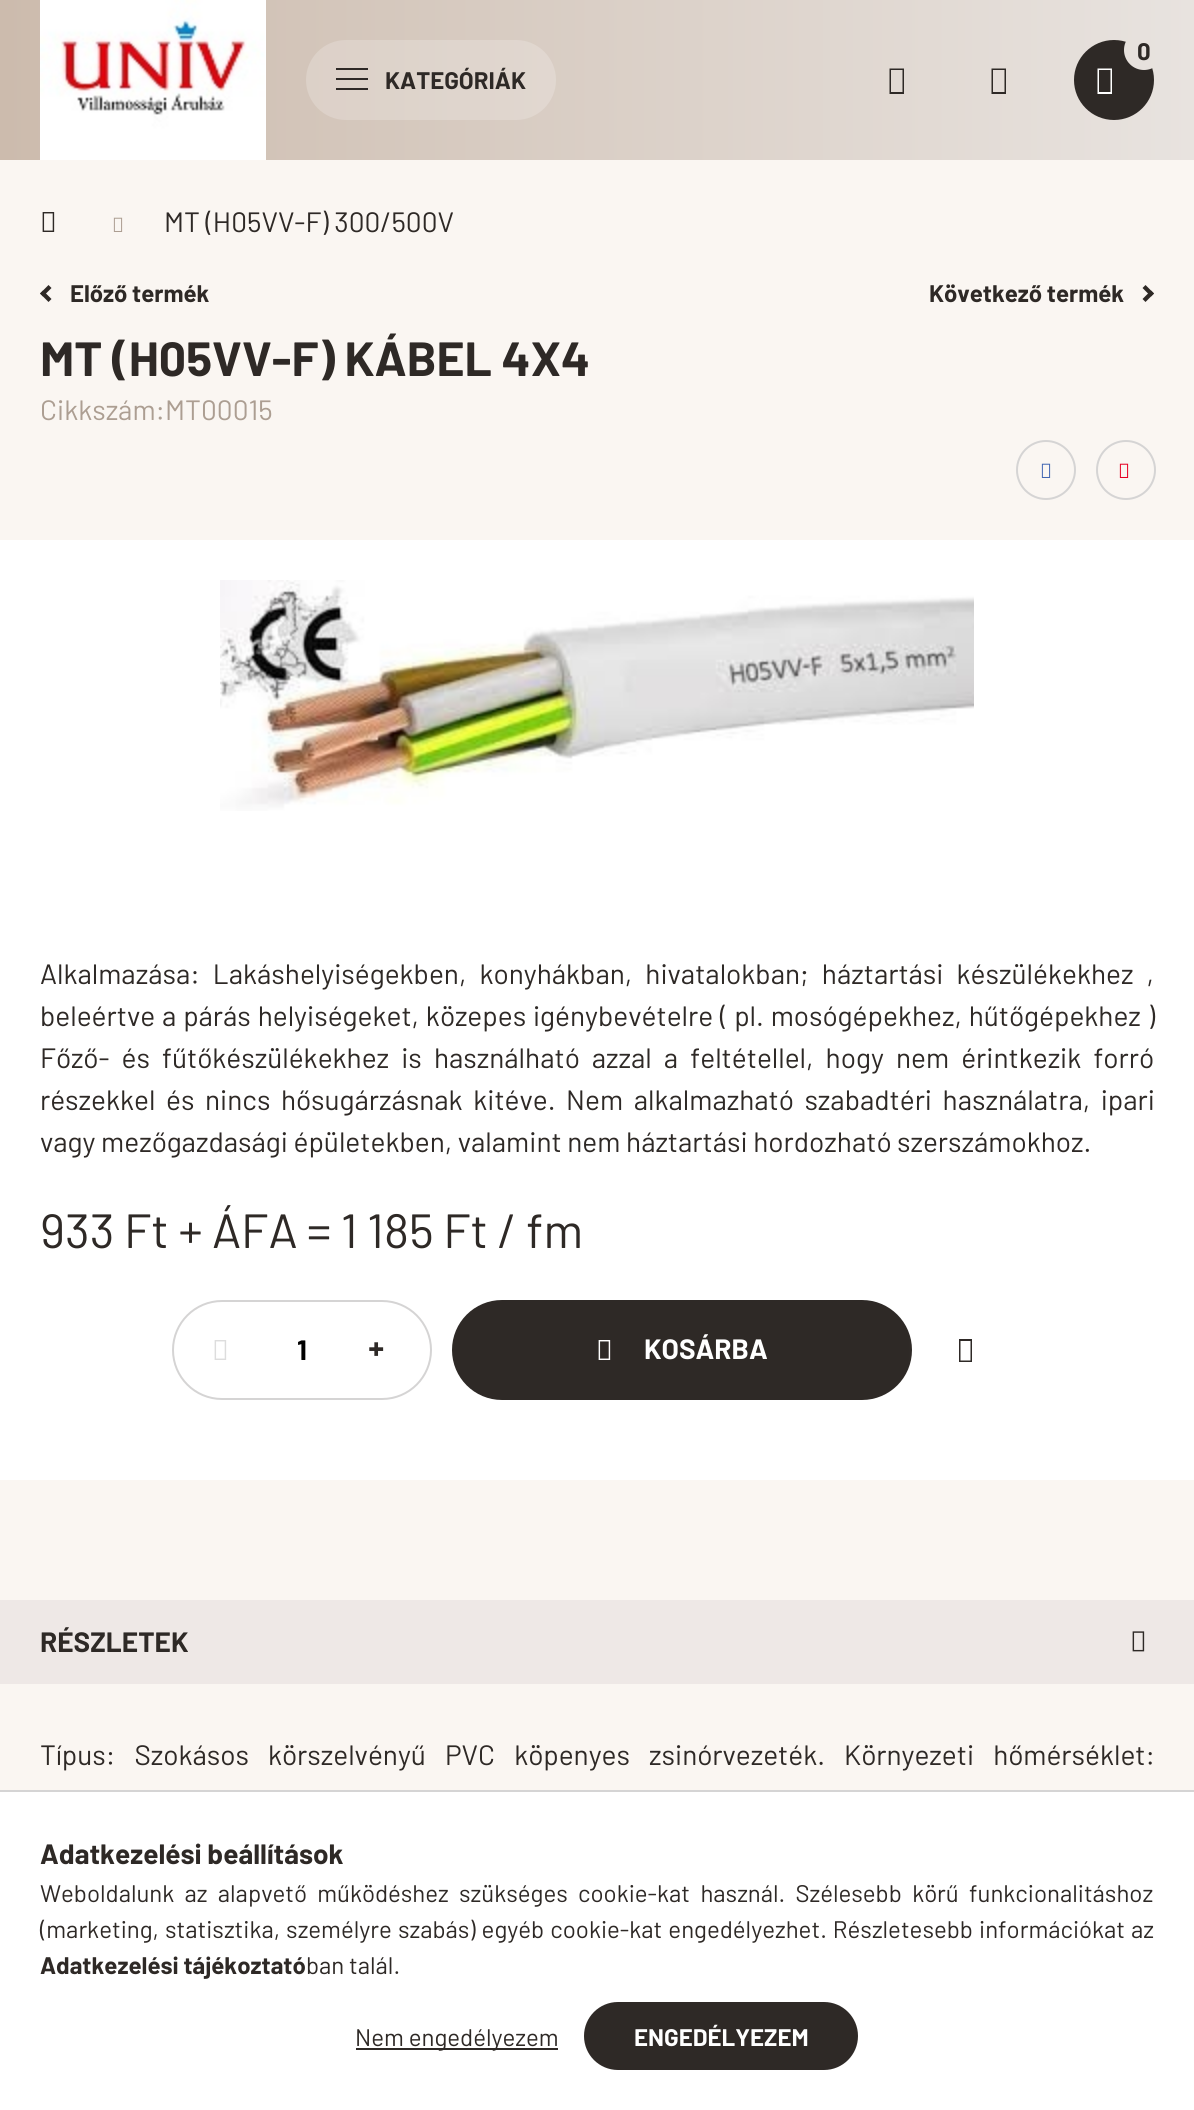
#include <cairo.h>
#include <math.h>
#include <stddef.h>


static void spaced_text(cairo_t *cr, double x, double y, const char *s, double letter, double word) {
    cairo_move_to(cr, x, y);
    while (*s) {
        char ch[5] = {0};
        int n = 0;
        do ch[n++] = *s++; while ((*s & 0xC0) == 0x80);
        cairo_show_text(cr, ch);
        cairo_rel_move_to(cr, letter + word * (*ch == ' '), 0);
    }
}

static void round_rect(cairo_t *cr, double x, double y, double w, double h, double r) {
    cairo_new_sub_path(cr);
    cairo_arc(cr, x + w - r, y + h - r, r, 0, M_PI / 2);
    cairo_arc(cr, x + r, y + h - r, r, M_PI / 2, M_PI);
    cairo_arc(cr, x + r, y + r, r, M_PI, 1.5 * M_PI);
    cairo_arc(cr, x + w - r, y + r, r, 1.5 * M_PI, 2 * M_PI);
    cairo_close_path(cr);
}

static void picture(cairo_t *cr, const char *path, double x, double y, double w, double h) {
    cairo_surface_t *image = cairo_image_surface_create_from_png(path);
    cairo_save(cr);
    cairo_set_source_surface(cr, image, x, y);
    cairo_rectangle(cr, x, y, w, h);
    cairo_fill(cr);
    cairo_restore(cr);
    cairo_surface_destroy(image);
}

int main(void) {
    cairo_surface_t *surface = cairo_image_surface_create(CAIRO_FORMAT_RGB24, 1194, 2110);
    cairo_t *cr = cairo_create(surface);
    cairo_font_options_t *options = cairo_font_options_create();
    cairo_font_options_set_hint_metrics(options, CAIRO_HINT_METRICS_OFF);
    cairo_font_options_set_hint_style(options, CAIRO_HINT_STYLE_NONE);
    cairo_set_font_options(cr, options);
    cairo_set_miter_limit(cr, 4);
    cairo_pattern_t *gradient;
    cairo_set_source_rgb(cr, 0.98, 0.961, 0.949);
    cairo_paint(cr);
    gradient = cairo_pattern_create_linear(0, 1055, 1194, 1055);
    cairo_pattern_add_color_stop_rgba(gradient, 0, 0.8, 0.733, 0.678, 1);
    cairo_pattern_add_color_stop_rgba(gradient, 1, 0.91, 0.89, 0.875, 1);
    cairo_set_source(cr, gradient);
    cairo_pattern_destroy(gradient);
    cairo_rectangle(cr, 0, 0, 1194, 160);
    cairo_fill(cr);
    cairo_set_source_rgb(cr, 0.18, 0.161, 0.149);
    cairo_arc(cr, 1114, 80, 40, 0, 2 * M_PI);
    cairo_fill(cr);
    gradient = cairo_pattern_create_linear(0, 1055, 1194, 1055);
    cairo_pattern_add_color_stop_rgba(gradient, 0, 0.8, 0.733, 0.678, 1);
    cairo_pattern_add_color_stop_rgba(gradient, 1, 0.91, 0.89, 0.875, 1);
    cairo_set_source(cr, gradient);
    cairo_pattern_destroy(gradient);
    cairo_arc(cr, 1144, 50, 20, 0, 2 * M_PI);
    cairo_fill(cr);
    cairo_select_font_face(cr, "Barlow", CAIRO_FONT_SLANT_NORMAL, CAIRO_FONT_WEIGHT_BOLD);
    cairo_set_font_size(cr, 24);
    cairo_set_source_rgb(cr, 0.18, 0.161, 0.149);
    cairo_move_to(cr, 1137, 60);
    cairo_show_text(cr, "0");
    cairo_set_source_rgb(cr, 1, 1, 1);
    cairo_new_path(cr);
    cairo_move_to(cr, 1097.5, 94);
    cairo_line_to(cr, 1097.5, 68.5);
    cairo_line_to(cr, 1112, 68.5);
    cairo_line_to(cr, 1112, 94);
    cairo_close_path(cr);
    cairo_move_to(cr, 1099, 92);
    cairo_line_to(cr, 1110.5, 92);
    cairo_line_to(cr, 1110.5, 70);
    cairo_line_to(cr, 1099, 70);
    cairo_close_path(cr);
    cairo_fill(cr);
    cairo_set_source_rgb(cr, 0.18, 0.161, 0.149);
    cairo_new_path(cr);
    cairo_move_to(cr, 889.5, 94);
    cairo_line_to(cr, 889.5, 68.5);
    cairo_line_to(cr, 904, 68.5);
    cairo_line_to(cr, 904, 94);
    cairo_close_path(cr);
    cairo_move_to(cr, 891, 92);
    cairo_line_to(cr, 902.5, 92);
    cairo_line_to(cr, 902.5, 70);
    cairo_line_to(cr, 891, 70);
    cairo_close_path(cr);
    cairo_fill(cr);
    cairo_new_path(cr);
    cairo_move_to(cr, 991.5, 94);
    cairo_line_to(cr, 991.5, 68.5);
    cairo_line_to(cr, 1006, 68.5);
    cairo_line_to(cr, 1006, 94);
    cairo_close_path(cr);
    cairo_move_to(cr, 993, 92);
    cairo_line_to(cr, 1004.5, 92);
    cairo_line_to(cr, 1004.5, 70);
    cairo_line_to(cr, 993, 70);
    cairo_close_path(cr);
    cairo_fill(cr);
    picture(cr, "img1.png", 40, 0, 226, 160);
    cairo_set_source_rgba(cr, 1, 1, 1, 0.2);
    round_rect(cr, 306, 40, 250, 80, 40);
    cairo_fill(cr);
    cairo_set_source_rgb(cr, 0.18, 0.161, 0.149);
    cairo_rectangle(cr, 336, 68, 32, 2);
    cairo_fill(cr);
    cairo_rectangle(cr, 336, 78, 32, 2);
    cairo_fill(cr);
    cairo_rectangle(cr, 336, 88, 32, 2);
    cairo_fill(cr);
    cairo_move_to(cr, 385, 89);
    cairo_show_text(cr, "KATEGÓRIÁK");
    picture(cr, "img2.png", 42, 212, 13, 20);
    picture(cr, "img3.png", 113, 217, 10, 15);
    cairo_select_font_face(cr, "Barlow", CAIRO_FONT_SLANT_NORMAL, CAIRO_FONT_WEIGHT_NORMAL);
    cairo_set_font_size(cr, 28);
    cairo_move_to(cr, 164, 232);
    cairo_show_text(cr, "MT (H05VV-F) 300/500V");
    cairo_new_path(cr);
    cairo_move_to(cr, 40, 293.5);
    cairo_line_to(cr, 48.5, 285);
    cairo_line_to(cr, 51.5, 288);
    cairo_line_to(cr, 43, 296.5);
    cairo_close_path(cr);
    cairo_fill(cr);
    cairo_new_path(cr);
    cairo_move_to(cr, 43, 290.5);
    cairo_line_to(cr, 51.5, 299);
    cairo_line_to(cr, 48.5, 302);
    cairo_line_to(cr, 40, 293.5);
    cairo_close_path(cr);
    cairo_fill(cr);
    cairo_select_font_face(cr, "Barlow", CAIRO_FONT_SLANT_NORMAL, CAIRO_FONT_WEIGHT_BOLD);
    cairo_set_font_size(cr, 24);
    cairo_move_to(cr, 70, 302);
    cairo_show_text(cr, "Előző termék");
    cairo_move_to(cr, 929, 302);
    cairo_show_text(cr, "Következő termék");
    cairo_new_path(cr);
    cairo_move_to(cr, 1142.5, 299);
    cairo_line_to(cr, 1151, 290.5);
    cairo_line_to(cr, 1154, 293.5);
    cairo_line_to(cr, 1145.5, 302);
    cairo_close_path(cr);
    cairo_fill(cr);
    cairo_new_path(cr);
    cairo_move_to(cr, 1145.5, 285);
    cairo_line_to(cr, 1154, 293.5);
    cairo_line_to(cr, 1151, 296.5);
    cairo_line_to(cr, 1142.5, 288);
    cairo_close_path(cr);
    cairo_fill(cr);
    cairo_set_font_size(cr, 48);
    cairo_move_to(cr, 40, 376);
    cairo_show_text(cr, "MT (H05VV-F) KÁBEL 4X4");
    cairo_select_font_face(cr, "Barlow", CAIRO_FONT_SLANT_NORMAL, CAIRO_FONT_WEIGHT_NORMAL);
    cairo_set_font_size(cr, 28);
    cairo_set_source_rgb(cr, 0.675, 0.62, 0.573);
    cairo_move_to(cr, 40, 420);
    cairo_show_text(cr, "Cikkszám:MT00015");
    cairo_new_path(cr);
    cairo_arc(cr, 1046, 470, 29, 0, 2 * M_PI);
    cairo_set_source_rgb(cr, 0.835, 0.831, 0.831);
    cairo_stroke(cr);
    picture(cr, "img4.png", 1041, 463, 10, 15);
    cairo_arc(cr, 1126, 470, 29, 0, 2 * M_PI);
    cairo_stroke(cr);
    picture(cr, "img5.png", 1119, 463, 10, 15);
    cairo_set_source_rgb(cr, 1, 1, 1);
    cairo_rectangle(cr, 0, 540, 1194, 940);
    cairo_fill(cr);
    picture(cr, "img6.png", 220, 580, 754, 231);
    cairo_set_source_rgb(cr, 0.18, 0.161, 0.149);
    spaced_text(cr, 40, 984, "Alkalmazása: Lakáshelyiségekben, konyhákban, hivatalokban; háztartási készülékekhez ,", 0, 7.5);
    spaced_text(cr, 40, 1026, "beleértve a párás helyiségeket, közepes igénybevételre ( pl. mosógépekhez, hűtőgépekhez )", 0, 1.25);
    spaced_text(cr, 40, 1068, "Főző- és fűtőkészülékekhez is használható azzal a feltétellel, hogy nem érintkezik forró", 0, 6.5);
    spaced_text(cr, 40, 1110, "részekkel és nincs hősugárzásnak kitéve. Nem alkalmazható szabadtéri használatra, ipari", 0, 5);
    cairo_move_to(cr, 40, 1152);
    cairo_show_text(cr, "vagy mezőgazdasági épületekben, valamint nem háztartási hordozható szerszámokhoz.");
    cairo_set_font_size(cr, 48);
    cairo_move_to(cr, 40, 1248);
    cairo_show_text(cr, "933 Ft + ÁFA = 1 185 Ft / fm");
    round_rect(cr, 173, 1301, 258, 98, 49);
    cairo_set_source_rgb(cr, 0.835, 0.831, 0.831);
    cairo_stroke(cr);
    picture(cr, "img7.png", 214, 1340, 13, 20);
    cairo_select_font_face(cr, "Barlow", CAIRO_FONT_SLANT_NORMAL, CAIRO_FONT_WEIGHT_BOLD);
    cairo_set_font_size(cr, 28);
    cairo_set_source_rgb(cr, 0, 0, 0);
    cairo_move_to(cr, 297, 1360);
    cairo_show_text(cr, "1");
    cairo_select_font_face(cr, "Noto Sans Black", CAIRO_FONT_SLANT_NORMAL, CAIRO_FONT_WEIGHT_NORMAL);
    cairo_set_source_rgb(cr, 0.18, 0.161, 0.149);
    cairo_move_to(cr, 368, 1359);
    cairo_show_text(cr, "+");
    gradient = cairo_pattern_create_linear(452, 1350, 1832, 1350);
    cairo_pattern_add_color_stop_rgba(gradient, 0.33, 0.18, 0.161, 0.149, 1);
    cairo_pattern_add_color_stop_rgba(gradient, 0.67, 0.8, 0.733, 0.678, 1);
    cairo_set_source(cr, gradient);
    cairo_pattern_destroy(gradient);
    round_rect(cr, 452, 1300, 460, 100, 50);
    cairo_fill(cr);
    picture(cr, "img8.png", 598, 1340, 13, 20);
    cairo_select_font_face(cr, "Barlow", CAIRO_FONT_SLANT_NORMAL, CAIRO_FONT_WEIGHT_BOLD);
    cairo_set_source_rgb(cr, 1, 1, 1);
    cairo_move_to(cr, 644, 1359);
    cairo_show_text(cr, "KOSÁRBA");
    cairo_set_source_rgb(cr, 0.18, 0.161, 0.149);
    cairo_new_path(cr);
    cairo_move_to(cr, 959, 1362);
    cairo_line_to(cr, 959, 1339);
    cairo_line_to(cr, 972, 1339);
    cairo_line_to(cr, 972, 1362);
    cairo_close_path(cr);
    cairo_move_to(cr, 960.5, 1360.5);
    cairo_line_to(cr, 970.5, 1360.5);
    cairo_line_to(cr, 970.5, 1341);
    cairo_line_to(cr, 960.5, 1341);
    cairo_close_path(cr);
    cairo_fill(cr);
    cairo_set_source_rgb(cr, 0.933, 0.91, 0.902);
    cairo_rectangle(cr, 0, 1600, 1194, 84);
    cairo_fill(cr);
    cairo_set_source_rgb(cr, 0.18, 0.161, 0.149);
    cairo_move_to(cr, 40, 1652);
    cairo_show_text(cr, "RÉSZLETEK");
    picture(cr, "img9.png", 1132, 1631, 13, 21);
    cairo_select_font_face(cr, "Barlow", CAIRO_FONT_SLANT_NORMAL, CAIRO_FONT_WEIGHT_NORMAL);
    spaced_text(cr, 40, 1765, "Típus: Szokásos körszelvényű PVC köpenyes zsinórvezeték. Környezeti hőmérséklet:", 0, 13.5);
    cairo_set_source_rgb(cr, 1, 1, 1);
    cairo_rectangle(cr, 0, 1792, 1194, 318);
    cairo_fill(cr);
    cairo_set_source_rgb(cr, 0.835, 0.831, 0.831);
    cairo_rectangle(cr, 0, 1790, 1194, 2);
    cairo_fill(cr);
    cairo_select_font_face(cr, "Barlow", CAIRO_FONT_SLANT_NORMAL, CAIRO_FONT_WEIGHT_BOLD);
    cairo_set_source_rgb(cr, 0.18, 0.161, 0.149);
    cairo_move_to(cr, 40, 1864);
    cairo_show_text(cr, "Adatkezelési beállítások");
    cairo_select_font_face(cr, "Barlow", CAIRO_FONT_SLANT_NORMAL, CAIRO_FONT_WEIGHT_NORMAL);
    cairo_set_font_size(cr, 24);
    spaced_text(cr, 40, 1902, "Weboldalunk az alapvető működéshez szükséges cookie-kat használ. Szélesebb körű funkcionalitáshoz", 0, 5.5);
    spaced_text(cr, 40, 1938, "(marketing, statisztika, személyre szabás) egyéb cookie-kat engedélyezhet. Részletesebb információkat az", 0, 1.25);
    cairo_select_font_face(cr, "Barlow", CAIRO_FONT_SLANT_NORMAL, CAIRO_FONT_WEIGHT_BOLD);
    cairo_move_to(cr, 40, 1974);
    cairo_show_text(cr, "Adatkezelési tájékoztató");
    cairo_select_font_face(cr, "Barlow", CAIRO_FONT_SLANT_NORMAL, CAIRO_FONT_WEIGHT_NORMAL);
    cairo_move_to(cr, 306, 1974);
    cairo_show_text(cr, "ban talál.");
    cairo_rectangle(cr, 356, 2048, 202, 2);
    cairo_fill(cr);
    cairo_move_to(cr, 355, 2046);
    cairo_show_text(cr, "Nem engedélyezem");
    gradient = cairo_pattern_create_linear(584, 2036, 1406, 2036);
    cairo_pattern_add_color_stop_rgba(gradient, 0.33, 0.18, 0.161, 0.149, 1);
    cairo_pattern_add_color_stop_rgba(gradient, 0.67, 0.8, 0.733, 0.678, 1);
    cairo_set_source(cr, gradient);
    cairo_pattern_destroy(gradient);
    round_rect(cr, 584, 2002, 274, 68, 34);
    cairo_fill(cr);
    cairo_select_font_face(cr, "Barlow", CAIRO_FONT_SLANT_NORMAL, CAIRO_FONT_WEIGHT_BOLD);
    cairo_set_source_rgb(cr, 1, 1, 1);
    cairo_move_to(cr, 634, 2046);
    cairo_show_text(cr, "ENGEDÉLYEZEM");
    cairo_surface_write_to_png(surface, "page.png");
    cairo_font_options_destroy(options);
    cairo_destroy(cr);
    cairo_surface_destroy(surface);
    return 0;
}
